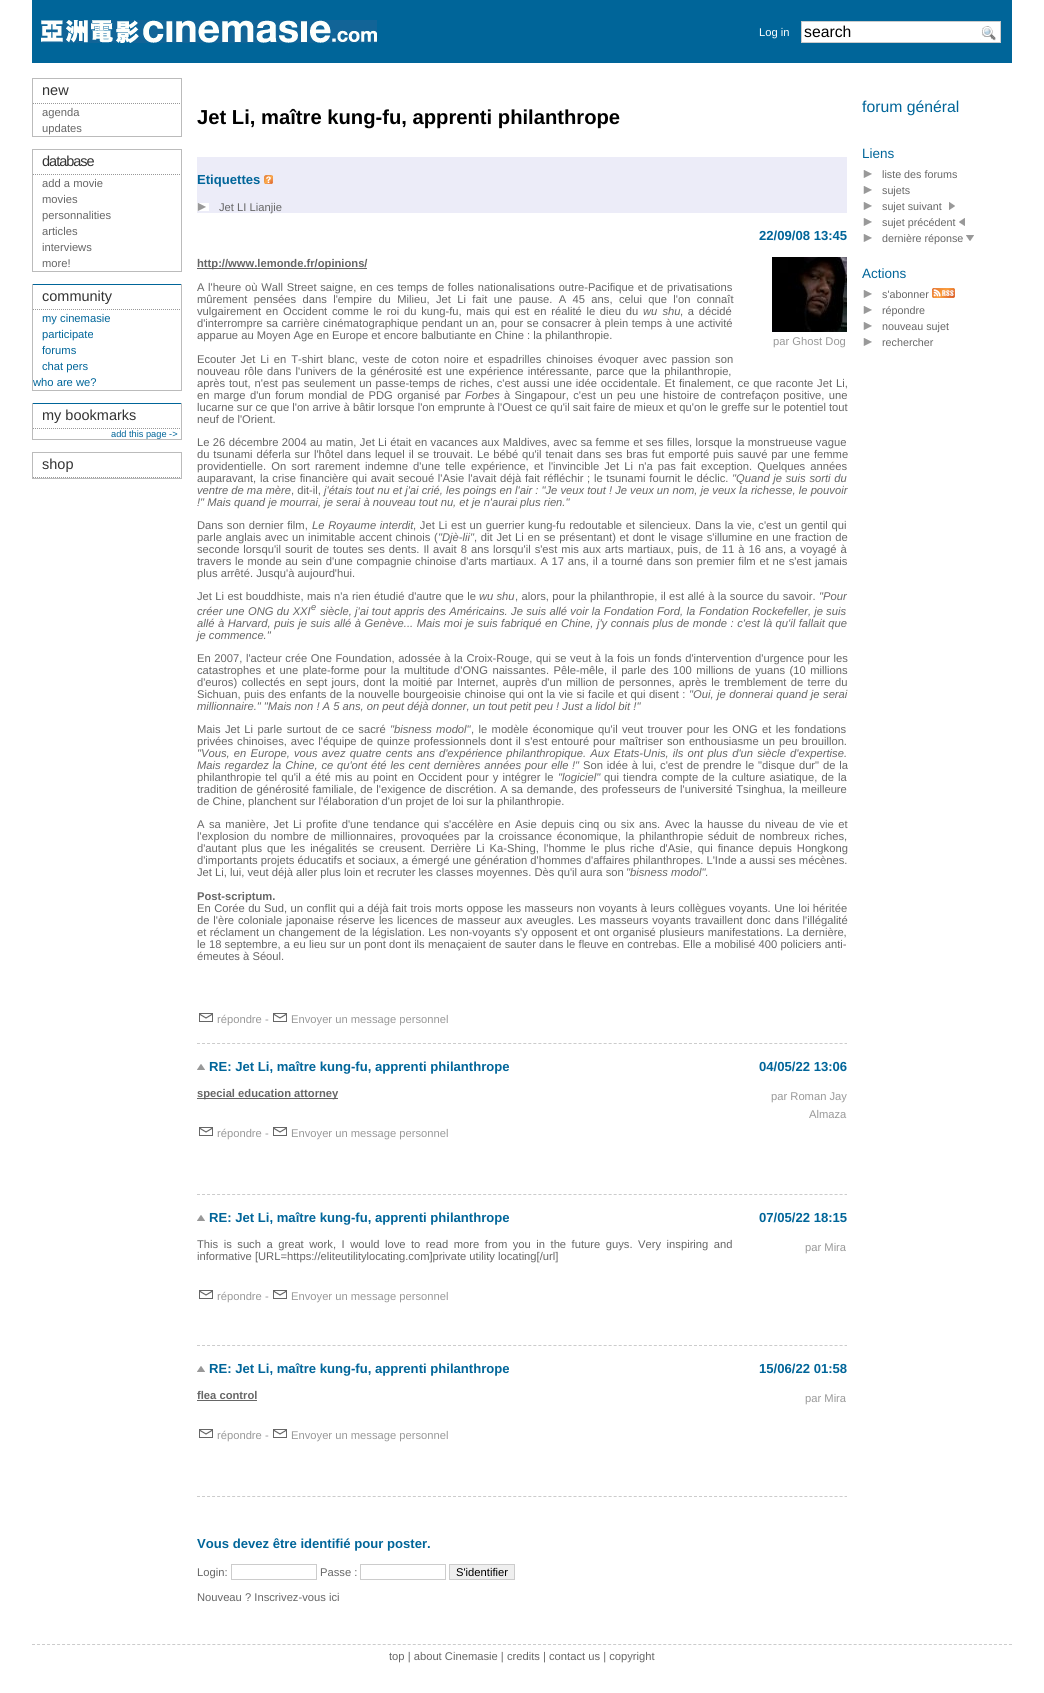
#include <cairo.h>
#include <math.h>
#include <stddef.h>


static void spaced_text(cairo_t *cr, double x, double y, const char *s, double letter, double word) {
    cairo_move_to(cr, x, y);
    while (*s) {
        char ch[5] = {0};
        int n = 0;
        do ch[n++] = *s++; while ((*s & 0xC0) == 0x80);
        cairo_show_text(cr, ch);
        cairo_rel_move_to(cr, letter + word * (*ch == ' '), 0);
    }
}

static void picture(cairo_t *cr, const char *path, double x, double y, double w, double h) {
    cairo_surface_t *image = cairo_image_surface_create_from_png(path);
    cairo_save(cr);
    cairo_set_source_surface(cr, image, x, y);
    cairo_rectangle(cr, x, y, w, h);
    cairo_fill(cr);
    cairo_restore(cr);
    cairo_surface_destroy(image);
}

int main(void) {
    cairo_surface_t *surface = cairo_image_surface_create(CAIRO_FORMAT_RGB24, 1044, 1693);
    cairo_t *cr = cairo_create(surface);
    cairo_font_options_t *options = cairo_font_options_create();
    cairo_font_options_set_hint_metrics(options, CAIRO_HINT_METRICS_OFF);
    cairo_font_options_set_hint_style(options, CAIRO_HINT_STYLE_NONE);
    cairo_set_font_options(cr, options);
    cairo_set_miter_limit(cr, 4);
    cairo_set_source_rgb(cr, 1, 1, 1);
    cairo_paint(cr);
    cairo_set_source_rgb(cr, 0, 0.396, 0.6);
    cairo_rectangle(cr, 32, 0, 980, 63);
    cairo_fill(cr);
    picture(cr, "img1.png", 41, 20, 336, 23);
    cairo_select_font_face(cr, "Liberation Sans", CAIRO_FONT_SLANT_NORMAL, CAIRO_FONT_WEIGHT_NORMAL);
    cairo_set_font_size(cr, 11.2);
    cairo_set_source_rgb(cr, 1, 1, 1);
    cairo_move_to(cr, 759, 36);
    cairo_show_text(cr, "Log in");
    cairo_rectangle(cr, 802, 22, 198, 20);
    cairo_fill(cr);
    picture(cr, "img2.png", 980, 26, 16, 15);
    cairo_rectangle(cr, 801.5, 21.5, 199, 21);
    cairo_set_source_rgb(cr, 0.8, 0.8, 0.8);
    cairo_set_line_width(cr, 1);
    cairo_stroke(cr);
    cairo_set_font_size(cr, 15.75);
    cairo_set_source_rgb(cr, 0, 0, 0);
    cairo_move_to(cr, 804, 37);
    cairo_show_text(cr, "search");
    cairo_rectangle(cr, 32.5, 78.5, 149, 58);
    cairo_set_source_rgb(cr, 0.733, 0.733, 0.733);
    cairo_stroke(cr);
    cairo_new_path(cr);
    cairo_move_to(cr, 33, 103.5);
    cairo_line_to(cr, 181, 103.5);
    cairo_set_source_rgb(cr, 0.6, 0.6, 0.6);
    cairo_set_dash(cr, (double[]){1, 1}, 2, 0);
    cairo_stroke(cr);
    cairo_set_font_size(cr, 14.5);
    cairo_set_source_rgb(cr, 0.2, 0.2, 0.2);
    cairo_move_to(cr, 42, 95);
    cairo_show_text(cr, "new");
    cairo_set_font_size(cr, 11.2);
    cairo_set_source_rgb(cr, 0.4, 0.4, 0.4);
    cairo_move_to(cr, 42, 116);
    cairo_show_text(cr, "agenda");
    cairo_move_to(cr, 42, 132);
    cairo_show_text(cr, "updates");
    cairo_rectangle(cr, 32.5, 149.5, 149, 122);
    cairo_set_source_rgb(cr, 0.733, 0.733, 0.733);
    cairo_set_dash(cr, NULL, 0, 0);
    cairo_stroke(cr);
    cairo_new_path(cr);
    cairo_move_to(cr, 33, 174.5);
    cairo_line_to(cr, 181, 174.5);
    cairo_set_source_rgb(cr, 0.6, 0.6, 0.6);
    cairo_set_dash(cr, (double[]){1, 1}, 2, 0);
    cairo_stroke(cr);
    cairo_set_font_size(cr, 14.5);
    cairo_set_source_rgb(cr, 0.2, 0.2, 0.2);
    spaced_text(cr, 42, 166, "database", -1, 0);
    cairo_set_font_size(cr, 11.2);
    cairo_set_source_rgb(cr, 0.4, 0.4, 0.4);
    cairo_move_to(cr, 42, 187);
    cairo_show_text(cr, "add a movie");
    cairo_move_to(cr, 42, 203);
    cairo_show_text(cr, "movies");
    cairo_move_to(cr, 42, 219);
    cairo_show_text(cr, "personnalities");
    cairo_move_to(cr, 42, 235);
    cairo_show_text(cr, "articles");
    cairo_move_to(cr, 42, 251);
    cairo_show_text(cr, "interviews");
    cairo_move_to(cr, 42, 267);
    cairo_show_text(cr, "more!");
    cairo_set_source_rgb(cr, 0, 0.396, 0.6);
    cairo_rectangle(cr, 32, 284, 150, 1);
    cairo_fill(cr);
    cairo_set_source_rgb(cr, 0.733, 0.733, 0.733);
    cairo_rectangle(cr, 181, 284, 1, 107);
    cairo_fill(cr);
    cairo_rectangle(cr, 32, 390, 150, 1);
    cairo_fill(cr);
    cairo_rectangle(cr, 32, 284, 1, 107);
    cairo_fill(cr);
    cairo_new_path(cr);
    cairo_move_to(cr, 33, 309.5);
    cairo_line_to(cr, 181, 309.5);
    cairo_set_source_rgb(cr, 0.6, 0.6, 0.6);
    cairo_stroke(cr);
    cairo_set_font_size(cr, 14.5);
    cairo_set_source_rgb(cr, 0.2, 0.2, 0.2);
    cairo_move_to(cr, 42, 301);
    cairo_show_text(cr, "community");
    cairo_set_font_size(cr, 11.2);
    cairo_set_source_rgb(cr, 0, 0.396, 0.6);
    cairo_move_to(cr, 42, 322);
    cairo_show_text(cr, "my cinemasie");
    cairo_move_to(cr, 42, 338);
    cairo_show_text(cr, "participate");
    cairo_move_to(cr, 42, 354);
    cairo_show_text(cr, "forums");
    cairo_move_to(cr, 42, 370);
    cairo_show_text(cr, "chat pers");
    cairo_move_to(cr, 33, 386);
    cairo_show_text(cr, "who are we?");
    cairo_rectangle(cr, 32, 403, 150, 1);
    cairo_fill(cr);
    cairo_set_source_rgb(cr, 0.733, 0.733, 0.733);
    cairo_rectangle(cr, 181, 403, 1, 37);
    cairo_fill(cr);
    cairo_rectangle(cr, 32, 439, 150, 1);
    cairo_fill(cr);
    cairo_rectangle(cr, 32, 403, 1, 37);
    cairo_fill(cr);
    cairo_new_path(cr);
    cairo_move_to(cr, 33, 428.5);
    cairo_line_to(cr, 181, 428.5);
    cairo_set_source_rgb(cr, 0.6, 0.6, 0.6);
    cairo_stroke(cr);
    cairo_set_font_size(cr, 14.5);
    cairo_set_source_rgb(cr, 0.2, 0.2, 0.2);
    cairo_move_to(cr, 42, 420);
    cairo_show_text(cr, "my bookmarks");
    cairo_set_font_size(cr, 9.25);
    cairo_set_source_rgb(cr, 0, 0.396, 0.6);
    cairo_move_to(cr, 111, 437);
    cairo_show_text(cr, "add this page ->");
    cairo_rectangle(cr, 32.5, 452.5, 149, 26);
    cairo_set_source_rgb(cr, 0.733, 0.733, 0.733);
    cairo_set_dash(cr, NULL, 0, 0);
    cairo_stroke(cr);
    cairo_new_path(cr);
    cairo_move_to(cr, 33, 477.5);
    cairo_line_to(cr, 181, 477.5);
    cairo_set_source_rgb(cr, 0.6, 0.6, 0.6);
    cairo_set_dash(cr, (double[]){1, 1}, 2, 0);
    cairo_stroke(cr);
    cairo_set_font_size(cr, 14.5);
    cairo_set_source_rgb(cr, 0.2, 0.2, 0.2);
    cairo_move_to(cr, 42, 469);
    cairo_show_text(cr, "shop");
    cairo_select_font_face(cr, "Liberation Sans", CAIRO_FONT_SLANT_NORMAL, CAIRO_FONT_WEIGHT_BOLD);
    cairo_set_font_size(cr, 20.2);
    cairo_set_source_rgb(cr, 0, 0, 0);
    cairo_move_to(cr, 197, 124);
    cairo_show_text(cr, "Jet Li, maître kung-fu, apprenti philanthrope");
    cairo_set_source_rgb(cr, 0.922, 0.922, 0.969);
    cairo_rectangle(cr, 197, 157, 650, 56);
    cairo_fill(cr);
    cairo_set_font_size(cr, 13.1);
    cairo_set_source_rgb(cr, 0, 0.396, 0.6);
    cairo_move_to(cr, 197, 184);
    cairo_show_text(cr, "Etiquettes");
    picture(cr, "img3.png", 264, 175, 9, 9);
    picture(cr, "img4.png", 197, 203, 12, 8);
    cairo_select_font_face(cr, "Liberation Sans", CAIRO_FONT_SLANT_NORMAL, CAIRO_FONT_WEIGHT_NORMAL);
    cairo_set_font_size(cr, 11.2);
    cairo_set_source_rgb(cr, 0.4, 0.4, 0.4);
    cairo_move_to(cr, 219, 211);
    cairo_show_text(cr, "Jet LI Lianjie");
    cairo_new_path(cr);
    cairo_move_to(cr, 197, 1043.5);
    cairo_line_to(cr, 847, 1043.5);
    cairo_set_source_rgb(cr, 0.8, 0.8, 0.8);
    cairo_set_dash(cr, (double[]){3, 2.02}, 2, 0);
    cairo_stroke(cr);
    cairo_select_font_face(cr, "Liberation Sans", CAIRO_FONT_SLANT_NORMAL, CAIRO_FONT_WEIGHT_BOLD);
    cairo_set_font_size(cr, 13.1);
    cairo_set_source_rgb(cr, 0, 0.396, 0.6);
    cairo_move_to(cr, 759, 240);
    cairo_show_text(cr, "22/09/08 13:45");
    cairo_set_source_rgb(cr, 0.4, 0.4, 0.4);
    cairo_rectangle(cr, 197, 268, 170, 1);
    cairo_fill(cr);
    cairo_set_font_size(cr, 11.2);
    cairo_move_to(cr, 197, 267);
    cairo_show_text(cr, "http://www.lemonde.fr/opinions/");
    cairo_select_font_face(cr, "Liberation Sans", CAIRO_FONT_SLANT_NORMAL, CAIRO_FONT_WEIGHT_NORMAL);
    cairo_move_to(cr, 197, 291);
    cairo_show_text(cr, "A");
    spaced_text(cr, 208, 291, "l'heure où Wall Street saigne, en ces temps de folles nationalisations outre-Pacifique et de privatisations", 0, 0.6);
    spaced_text(cr, 197, 303, "mûrement pensées dans l'empire du Milieu, Jet Li fait une pause. A 45 ans, celui que l'on connaît", 0, 3.25);
    spaced_text(cr, 197, 315, "vulgairement en Occident comme le roi du kung-fu, mais qui est en réalité le dieu du", 0, 1.6);
    cairo_select_font_face(cr, "Liberation Sans", CAIRO_FONT_SLANT_ITALIC, CAIRO_FONT_WEIGHT_NORMAL);
    spaced_text(cr, 643, 315, "wu shu", 0, 2);
    cairo_select_font_face(cr, "Liberation Sans", CAIRO_FONT_SLANT_NORMAL, CAIRO_FONT_WEIGHT_NORMAL);
    spaced_text(cr, 680, 315, ", a décidé", 0, 1.6);
    spaced_text(cr, 197, 327, "d'interrompre sa carrière cinématographique pendant un an, pour se consacrer à plein temps à une activité", 0, 0.4);
    cairo_move_to(cr, 197, 339);
    cairo_show_text(cr, "apparue au Moyen Age en Europe et encore balbutiante en Chine : la philanthropie.");
    spaced_text(cr, 197, 363, "Ecouter Jet Li en T-shirt blanc, veste de coton noire et espadrilles chinoises évoquer avec passion son", 0, 1.75);
    spaced_text(cr, 197, 375, "nouveau rôle dans l'univers de la générosité est une expérience intéressante, parce que la philanthropie,", 0, 1.1);
    spaced_text(cr, 197, 387, "après tout, n'est pas seulement un passe-temps de riches, c'est aussi une idée occidentale. Et finalement, ce que raconte Jet Li,", 0, 0.75);
    spaced_text(cr, 197, 399, "en marge d'un forum mondial de PDG organisé par", 0, 1.25);
    cairo_select_font_face(cr, "Liberation Sans", CAIRO_FONT_SLANT_ITALIC, CAIRO_FONT_WEIGHT_NORMAL);
    cairo_move_to(cr, 465, 399);
    cairo_show_text(cr, "Forbes");
    cairo_select_font_face(cr, "Liberation Sans", CAIRO_FONT_SLANT_NORMAL, CAIRO_FONT_WEIGHT_NORMAL);
    spaced_text(cr, 504, 399, "à Singapour, c'est un peu une histoire de contrefaçon positive, une", 0, 1.25);
    cairo_move_to(cr, 197, 411);
    cairo_show_text(cr, "lucarne sur ce que l'on arrive à bâtir lorsque l'on emprunte à l'Ouest ce qu'il sait faire de mieux et qu'on le greffe sur le potentiel tout");
    cairo_move_to(cr, 197, 423);
    cairo_show_text(cr, "neuf de l'Orient.");
    spaced_text(cr, 197, 446, "Le 26 décembre 2004 au matin, Jet Li était en vacances aux Maldives, avec sa femme et ses filles, lorsque la monstrueuse vague", 0, 0.25);
    spaced_text(cr, 197, 458, "du tsunami déferla sur l'hôtel dans lequel il se trouvait. Le bébé qu'il tenait dans ses bras fut emporté puis sauvé par une femme", 0, 0.75);
    spaced_text(cr, 197, 470, "providentielle. On sort rarement indemne d'une telle expérience, et l'invincible Jet Li n'a pas fait exception. Quelques années", 0, 2);
    spaced_text(cr, 197, 482, "auparavant, la crise financière qui avait secoué l'Asie l'avait déjà fait réfléchir ; le tsunami fournit le déclic.", 0, 0.6);
    cairo_select_font_face(cr, "Liberation Sans", CAIRO_FONT_SLANT_ITALIC, CAIRO_FONT_WEIGHT_NORMAL);
    spaced_text(cr, 732, 482, "\"Quand je suis sorti du", 0, 0.6);
    cairo_move_to(cr, 197, 494);
    cairo_show_text(cr, "ventre de ma mère");
    cairo_select_font_face(cr, "Liberation Sans", CAIRO_FONT_SLANT_NORMAL, CAIRO_FONT_WEIGHT_NORMAL);
    cairo_move_to(cr, 291, 494);
    cairo_show_text(cr, ", dit-il,");
    cairo_select_font_face(cr, "Liberation Sans", CAIRO_FONT_SLANT_ITALIC, CAIRO_FONT_WEIGHT_NORMAL);
    cairo_move_to(cr, 324, 494);
    cairo_show_text(cr, "j'étais tout nu et j'ai crié, les poings en l'air : \"Je veux tout ! Je veux un nom, je veux la richesse, le pouvoir");
    cairo_move_to(cr, 197, 506);
    cairo_show_text(cr, "!\" Mais quand je mourrai, je serai à nouveau tout nu, et je n'aurai plus rien.\"");
    cairo_select_font_face(cr, "Liberation Sans", CAIRO_FONT_SLANT_NORMAL, CAIRO_FONT_WEIGHT_NORMAL);
    spaced_text(cr, 197, 529, "Dans son dernier film,", 0, 0.6);
    cairo_select_font_face(cr, "Liberation Sans", CAIRO_FONT_SLANT_ITALIC, CAIRO_FONT_WEIGHT_NORMAL);
    spaced_text(cr, 312, 529, "Le Royaume interdit", 0, 0.6);
    cairo_select_font_face(cr, "Liberation Sans", CAIRO_FONT_SLANT_NORMAL, CAIRO_FONT_WEIGHT_NORMAL);
    spaced_text(cr, 413, 529, ", Jet Li est un guerrier kung-fu redoutable et silencieux. Dans la vie, c'est un gentil qui", 0, 0.6);
    spaced_text(cr, 197, 541, "parle anglais avec un inimitable accent chinois (", 0, 0.5);
    cairo_select_font_face(cr, "Liberation Sans", CAIRO_FONT_SLANT_ITALIC, CAIRO_FONT_WEIGHT_NORMAL);
    cairo_move_to(cr, 438, 541);
    cairo_show_text(cr, "\"Djè-lii\"");
    cairo_select_font_face(cr, "Liberation Sans", CAIRO_FONT_SLANT_NORMAL, CAIRO_FONT_WEIGHT_NORMAL);
    spaced_text(cr, 474, 541, ", dit Jet Li en se présentant) et dont le visage s'illumine en une fraction de", 0, 0.6);
    spaced_text(cr, 197, 553, "seconde lorsqu'il sourit de toutes ses dents. Il avait 8 ans lorsqu'il s'est mis aux arts martiaux, puis, de 11 à 16 ans, a voyagé à", 0, 0.9);
    spaced_text(cr, 197, 565, "travers le monde au sein d'une compagnie chinoise d'arts martiaux. A 17 ans, il a tourné dans son premier film et ne s'est jamais", 0, 0.6);
    cairo_move_to(cr, 197, 577);
    cairo_show_text(cr, "plus arrêté. Jusqu'à aujourd'hui.");
    spaced_text(cr, 197, 600, "Jet Li est bouddhiste, mais n'a rien étudié d'autre que le", 0, 0.25);
    cairo_select_font_face(cr, "Liberation Sans", CAIRO_FONT_SLANT_ITALIC, CAIRO_FONT_WEIGHT_NORMAL);
    cairo_move_to(cr, 479, 600);
    cairo_show_text(cr, "wu shu");
    cairo_select_font_face(cr, "Liberation Sans", CAIRO_FONT_SLANT_NORMAL, CAIRO_FONT_WEIGHT_NORMAL);
    spaced_text(cr, 515, 600, ", alors, pour la philanthropie, il est allé à la source du savoir.", 0, 0.25);
    cairo_select_font_face(cr, "Liberation Sans", CAIRO_FONT_SLANT_ITALIC, CAIRO_FONT_WEIGHT_NORMAL);
    cairo_move_to(cr, 819, 600);
    cairo_show_text(cr, "\"Pour");
    spaced_text(cr, 197, 615, "créer une ONG du XXI", 0, 0.25);
    cairo_set_font_size(cr, 9.25);
    cairo_move_to(cr, 311, 610);
    cairo_show_text(cr, "e");
    cairo_set_font_size(cr, 11.2);
    spaced_text(cr, 320, 615, "siècle, j'ai tout appris des Américains. Je suis allé voir la Fondation Ford, la", 0, 0.25);
    cairo_move_to(cr, 699, 615);
    cairo_show_text(cr, "Fondation");
    cairo_move_to(cr, 752, 615);
    cairo_show_text(cr, "Rockefeller, je suis");
    spaced_text(cr, 197, 627, "allé à Harvard, puis je suis allé à Genève... Mais moi je suis fabriqué en Chine, j'y connais plus de monde : c'est là qu'il fallait que", 0, 0.4);
    cairo_move_to(cr, 197, 639);
    cairo_show_text(cr, "je commence.\"");
    cairo_select_font_face(cr, "Liberation Sans", CAIRO_FONT_SLANT_NORMAL, CAIRO_FONT_WEIGHT_NORMAL);
    spaced_text(cr, 197, 662, "En 2007, l'acteur crée One Foundation, adossée à la Croix-Rouge, qui se veut à la fois un fonds d'intervention d'urgence pour les", 0, 0.5);
    spaced_text(cr, 197, 674, "catastrophes et une plate-forme pour la multitude d'ONG naissantes. Pêle-mêle, il parle des 100 millions de yuans (10 millions", 0, 1.4);
    spaced_text(cr, 197, 686, "d'euros) collectés en sept jours, dont la moitié par Internet, auprès d'un million de personnes, après le tremblement de terre du", 0, 1.2);
    spaced_text(cr, 197, 698, "Sichuan, puis des enfants de la nouvelle bourgeoisie chinoise qui ont la vie si facile et qui disent :", 0, 0.35);
    cairo_select_font_face(cr, "Liberation Sans", CAIRO_FONT_SLANT_ITALIC, CAIRO_FONT_WEIGHT_NORMAL);
    spaced_text(cr, 689, 698, "\"Oui, je donnerai quand je serai", 0, 0.35);
    cairo_move_to(cr, 197, 710);
    cairo_show_text(cr, "millionnaire.\" \"Mais non ! A 5 ans, on peut déjà donner, un tout petit peu ! Just a lidol bit !\"");
    cairo_select_font_face(cr, "Liberation Sans", CAIRO_FONT_SLANT_NORMAL, CAIRO_FONT_WEIGHT_NORMAL);
    spaced_text(cr, 197, 733, "Mais Jet Li parle surtout de ce sacré", 0, 1.25);
    cairo_select_font_face(cr, "Liberation Sans", CAIRO_FONT_SLANT_ITALIC, CAIRO_FONT_WEIGHT_NORMAL);
    spaced_text(cr, 390, 733, "\"bisness modol\"", 0, 1);
    cairo_select_font_face(cr, "Liberation Sans", CAIRO_FONT_SLANT_NORMAL, CAIRO_FONT_WEIGHT_NORMAL);
    spaced_text(cr, 471, 733, ", le modèle économique qu'il veut trouver pour les ONG et les fondations", 0, 1.25);
    spaced_text(cr, 197, 745, "privées chinoises, avec l'équipe de quinze professionnels dont il s'est entouré pour maîtriser son enthousiasme un peu brouillon.", 0, 0.8);
    cairo_select_font_face(cr, "Liberation Sans", CAIRO_FONT_SLANT_ITALIC, CAIRO_FONT_WEIGHT_NORMAL);
    spaced_text(cr, 197, 757, "\"Vous, en Europe, vous avez quatre cents ans d'expérience philanthropique. Aux Etats-Unis, ils ont plus d'un siècle d'expertise.", 0, 1.1);
    spaced_text(cr, 197, 769, "Mais regardez la Chine, ce", 0, 0.75);
    cairo_move_to(cr, 337, 769);
    cairo_show_text(cr, "qu'ont");
    spaced_text(cr, 371, 769, "été les cent dernières années pour elle", 0, 0.75);
    cairo_move_to(cr, 572, 769);
    cairo_show_text(cr, "!\"");
    cairo_select_font_face(cr, "Liberation Sans", CAIRO_FONT_SLANT_NORMAL, CAIRO_FONT_WEIGHT_NORMAL);
    spaced_text(cr, 583, 769, "Son idée à lui, c'est de prendre le \"disque dur\" de la", 0, 0.75);
    spaced_text(cr, 197, 781, "philanthropie tel qu'il a été mis au point en Occident pour y intégrer le", 0, 1);
    cairo_select_font_face(cr, "Liberation Sans", CAIRO_FONT_SLANT_ITALIC, CAIRO_FONT_WEIGHT_NORMAL);
    cairo_move_to(cr, 558, 781);
    cairo_show_text(cr, "\"logiciel\"");
    cairo_select_font_face(cr, "Liberation Sans", CAIRO_FONT_SLANT_NORMAL, CAIRO_FONT_WEIGHT_NORMAL);
    spaced_text(cr, 604, 781, "qui tiendra compte de la culture asiatique, de la", 0, 1);
    spaced_text(cr, 197, 793, "tradition de générosité familiale, de l'exigence de discrétion. A sa demande, des professeurs de l'université Tsinghua, la meilleure", 0, 0.5);
    cairo_move_to(cr, 197, 805);
    cairo_show_text(cr, "de Chine, planchent sur l'élaboration d'un projet de loi sur la philanthropie.");
    spaced_text(cr, 197, 828, "A sa manière, Jet Li profite d'une tendance qui s'accélère en Asie depuis cinq ou six ans. Avec la hausse du niveau de vie et", 0, 1.4);
    spaced_text(cr, 197, 840, "l'explosion du nombre de millionnaires, provoquées par la croissance économique, la philanthropie séduit de nombreux riches,", 0, 1.6);
    spaced_text(cr, 197, 852, "d'autant plus que les inégalités se creusent. Derrière Li Ka-Shing, l'homme le plus riche d'Asie, qui finance depuis Hongkong", 0, 1.9);
    cairo_move_to(cr, 197, 864);
    cairo_show_text(cr, "d'importants projets éducatifs et sociaux, a émergé une génération d'hommes d'affaires philanthropes. L'Inde a aussi ses mécènes.");
    cairo_move_to(cr, 197, 876);
    cairo_show_text(cr, "Jet Li, lui, veut déjà aller plus loin et recruter les classes moyennes. Dès qu'il aura son");
    cairo_select_font_face(cr, "Liberation Sans", CAIRO_FONT_SLANT_ITALIC, CAIRO_FONT_WEIGHT_NORMAL);
    cairo_move_to(cr, 626, 876);
    cairo_show_text(cr, "\"bisness modol\".");
    cairo_select_font_face(cr, "Liberation Sans", CAIRO_FONT_SLANT_NORMAL, CAIRO_FONT_WEIGHT_BOLD);
    cairo_move_to(cr, 197, 900);
    cairo_show_text(cr, "Post-scriptum.");
    cairo_select_font_face(cr, "Liberation Sans", CAIRO_FONT_SLANT_NORMAL, CAIRO_FONT_WEIGHT_NORMAL);
    spaced_text(cr, 197, 912, "En Corée du Sud, un conflit qui a déjà fait trois morts oppose les masseurs non voyants à leurs collègues voyants. Une loi héritée", 0, 0.35);
    spaced_text(cr, 197, 924, "de l'ère coloniale japonaise réserve les licences de masseur aux aveugles. Les masseurs voyants travaillent donc dans l'illégalité", 0, 0.7);
    spaced_text(cr, 197, 936, "et réclament un changement de la législation. Les non-voyants s'y opposent et ont organisé plusieurs manifestations. La dernière,", 0, 0.4);
    spaced_text(cr, 197, 948, "le 18 septembre, a eu lieu sur un pont dont ils menaçaient de sauter dans le fleuve en contrebas. Elle a mobilisé 400 policiers anti-", 0, 0.1);
    cairo_move_to(cr, 197, 960);
    cairo_show_text(cr, "émeutes à Séoul.");
    picture(cr, "img5.png", 772, 257, 75, 75);
    cairo_set_source_rgb(cr, 0.6, 0.6, 0.6);
    cairo_move_to(cr, 773, 345);
    cairo_show_text(cr, "par Ghost Dog");
    picture(cr, "img6.png", 199, 1013, 14, 9);
    cairo_move_to(cr, 217, 1023);
    cairo_show_text(cr, "répondre -");
    picture(cr, "img6.png", 273, 1013, 14, 9);
    cairo_move_to(cr, 291, 1023);
    cairo_show_text(cr, "Envoyer un message personnel");
    cairo_new_path(cr);
    cairo_move_to(cr, 197, 1194.5);
    cairo_line_to(cr, 847, 1194.5);
    cairo_set_source_rgb(cr, 0.8, 0.8, 0.8);
    cairo_stroke(cr);
    picture(cr, "img7.png", 197, 1064, 8, 6);
    cairo_select_font_face(cr, "Liberation Sans", CAIRO_FONT_SLANT_NORMAL, CAIRO_FONT_WEIGHT_BOLD);
    cairo_set_font_size(cr, 13.1);
    cairo_set_source_rgb(cr, 0, 0.396, 0.6);
    cairo_move_to(cr, 209, 1071);
    cairo_show_text(cr, "RE: Jet Li, maître kung-fu, apprenti philanthrope");
    cairo_move_to(cr, 759, 1071);
    cairo_show_text(cr, "04/05/22 13:06");
    cairo_set_source_rgb(cr, 0.4, 0.4, 0.4);
    cairo_rectangle(cr, 197, 1098, 141, 1);
    cairo_fill(cr);
    cairo_set_font_size(cr, 11.2);
    cairo_move_to(cr, 197, 1097);
    cairo_show_text(cr, "special education attorney");
    cairo_select_font_face(cr, "Liberation Sans", CAIRO_FONT_SLANT_NORMAL, CAIRO_FONT_WEIGHT_NORMAL);
    cairo_set_source_rgb(cr, 0.6, 0.6, 0.6);
    cairo_move_to(cr, 771, 1100);
    cairo_show_text(cr, "par Roman Jay");
    cairo_move_to(cr, 809, 1118);
    cairo_show_text(cr, "Almaza");
    picture(cr, "img6.png", 199, 1127, 14, 9);
    cairo_move_to(cr, 217, 1137);
    cairo_show_text(cr, "répondre -");
    picture(cr, "img6.png", 273, 1127, 14, 9);
    cairo_move_to(cr, 291, 1137);
    cairo_show_text(cr, "Envoyer un message personnel");
    cairo_new_path(cr);
    cairo_move_to(cr, 197, 1345.5);
    cairo_line_to(cr, 847, 1345.5);
    cairo_set_source_rgb(cr, 0.8, 0.8, 0.8);
    cairo_stroke(cr);
    picture(cr, "img7.png", 197, 1215, 8, 6);
    cairo_select_font_face(cr, "Liberation Sans", CAIRO_FONT_SLANT_NORMAL, CAIRO_FONT_WEIGHT_BOLD);
    cairo_set_font_size(cr, 13.1);
    cairo_set_source_rgb(cr, 0, 0.396, 0.6);
    cairo_move_to(cr, 209, 1222);
    cairo_show_text(cr, "RE: Jet Li, maître kung-fu, apprenti philanthrope");
    cairo_move_to(cr, 759, 1222);
    cairo_show_text(cr, "07/05/22 18:15");
    cairo_select_font_face(cr, "Liberation Sans", CAIRO_FONT_SLANT_NORMAL, CAIRO_FONT_WEIGHT_NORMAL);
    cairo_set_font_size(cr, 11.2);
    cairo_set_source_rgb(cr, 0.4, 0.4, 0.4);
    spaced_text(cr, 197, 1248, "This is such a great work, I would love to read more from you in the future guys. Very inspiring and", 0, 2.4);
    cairo_set_source_rgb(cr, 0.6, 0.6, 0.6);
    cairo_move_to(cr, 805, 1251);
    cairo_show_text(cr, "par Mira");
    cairo_set_source_rgb(cr, 0.4, 0.4, 0.4);
    cairo_move_to(cr, 197, 1260);
    cairo_show_text(cr, "informative [URL=https://eliteutilitylocating.com]private utility locating[/url]");
    picture(cr, "img6.png", 199, 1290, 14, 9);
    cairo_set_source_rgb(cr, 0.6, 0.6, 0.6);
    cairo_move_to(cr, 217, 1300);
    cairo_show_text(cr, "répondre -");
    picture(cr, "img6.png", 273, 1290, 14, 9);
    cairo_move_to(cr, 291, 1300);
    cairo_show_text(cr, "Envoyer un message personnel");
    cairo_new_path(cr);
    cairo_move_to(cr, 197, 1496.5);
    cairo_line_to(cr, 847, 1496.5);
    cairo_set_source_rgb(cr, 0.8, 0.8, 0.8);
    cairo_stroke(cr);
    picture(cr, "img7.png", 197, 1366, 8, 6);
    cairo_select_font_face(cr, "Liberation Sans", CAIRO_FONT_SLANT_NORMAL, CAIRO_FONT_WEIGHT_BOLD);
    cairo_set_font_size(cr, 13.1);
    cairo_set_source_rgb(cr, 0, 0.396, 0.6);
    cairo_move_to(cr, 209, 1373);
    cairo_show_text(cr, "RE: Jet Li, maître kung-fu, apprenti philanthrope");
    cairo_move_to(cr, 759, 1373);
    cairo_show_text(cr, "15/06/22 01:58");
    cairo_set_font_size(cr, 11.2);
    cairo_set_source_rgb(cr, 0.4, 0.4, 0.4);
    cairo_move_to(cr, 197, 1399);
    cairo_show_text(cr, "flea control");
    cairo_rectangle(cr, 197, 1400, 60, 1);
    cairo_fill(cr);
    cairo_select_font_face(cr, "Liberation Sans", CAIRO_FONT_SLANT_NORMAL, CAIRO_FONT_WEIGHT_NORMAL);
    cairo_set_source_rgb(cr, 0.6, 0.6, 0.6);
    cairo_move_to(cr, 805, 1402);
    cairo_show_text(cr, "par Mira");
    picture(cr, "img6.png", 199, 1429, 14, 9);
    cairo_move_to(cr, 217, 1439);
    cairo_show_text(cr, "répondre -");
    picture(cr, "img6.png", 273, 1429, 14, 9);
    cairo_move_to(cr, 291, 1439);
    cairo_show_text(cr, "Envoyer un message personnel");
    cairo_select_font_face(cr, "Liberation Sans", CAIRO_FONT_SLANT_NORMAL, CAIRO_FONT_WEIGHT_BOLD);
    cairo_set_font_size(cr, 13.1);
    cairo_set_source_rgb(cr, 0, 0.396, 0.6);
    cairo_move_to(cr, 197, 1548);
    cairo_show_text(cr, "Vous devez être identifié pour poster.");
    cairo_select_font_face(cr, "Liberation Sans", CAIRO_FONT_SLANT_NORMAL, CAIRO_FONT_WEIGHT_NORMAL);
    cairo_set_font_size(cr, 11.2);
    cairo_set_source_rgb(cr, 0.4, 0.4, 0.4);
    cairo_move_to(cr, 197, 1576);
    cairo_show_text(cr, "Login:");
    cairo_rectangle(cr, 231.5, 1564.5, 85, 15);
    cairo_set_source_rgb(cr, 0.8, 0.8, 0.8);
    cairo_set_dash(cr, NULL, 0, 0);
    cairo_stroke(cr);
    cairo_set_source_rgb(cr, 0.4, 0.4, 0.4);
    cairo_move_to(cr, 320, 1576);
    cairo_show_text(cr, "Passe :");
    cairo_rectangle(cr, 360.5, 1564.5, 85, 15);
    cairo_set_source_rgb(cr, 0.8, 0.8, 0.8);
    cairo_stroke(cr);
    cairo_set_source_rgb(cr, 0.937, 0.937, 0.937);
    cairo_rectangle(cr, 449.5, 1564.5, 65, 15);
    cairo_fill_preserve(cr);
    cairo_set_source_rgb(cr, 0.8, 0.8, 0.8);
    cairo_stroke(cr);
    cairo_set_source_rgb(cr, 0, 0, 0);
    cairo_move_to(cr, 456, 1576);
    cairo_show_text(cr, "S'identifier");
    cairo_set_source_rgb(cr, 0.4, 0.4, 0.4);
    cairo_move_to(cr, 197, 1601);
    cairo_show_text(cr, "Nouveau ? Inscrivez-vous ici");
    cairo_set_font_size(cr, 15.75);
    cairo_set_source_rgb(cr, 0, 0.396, 0.6);
    cairo_move_to(cr, 862, 112);
    cairo_show_text(cr, "forum général");
    cairo_set_font_size(cr, 13.5);
    cairo_move_to(cr, 862, 158);
    cairo_show_text(cr, "Liens");
    picture(cr, "img8.png", 863, 170, 9, 8);
    cairo_set_font_size(cr, 10.75);
    cairo_set_source_rgb(cr, 0.4, 0.4, 0.4);
    cairo_move_to(cr, 882, 178);
    cairo_show_text(cr, "liste des forums");
    picture(cr, "img8.png", 863, 186, 9, 8);
    cairo_move_to(cr, 882, 194);
    cairo_show_text(cr, "sujets");
    picture(cr, "img8.png", 863, 202, 9, 8);
    cairo_move_to(cr, 882, 210);
    cairo_show_text(cr, "sujet suivant");
    picture(cr, "img9.png", 949, 202, 6, 8);
    picture(cr, "img8.png", 863, 218, 9, 8);
    cairo_move_to(cr, 882, 226);
    cairo_show_text(cr, "sujet précédent");
    picture(cr, "img10.png", 959, 218, 6, 8);
    picture(cr, "img8.png", 863, 234, 9, 8);
    cairo_move_to(cr, 882, 242);
    cairo_show_text(cr, "dernière réponse");
    picture(cr, "img11.png", 966, 235, 8, 6);
    cairo_set_font_size(cr, 13.5);
    cairo_set_source_rgb(cr, 0, 0.396, 0.6);
    cairo_move_to(cr, 862, 278);
    cairo_show_text(cr, "Actions");
    picture(cr, "img8.png", 863, 290, 9, 8);
    cairo_set_font_size(cr, 10.75);
    cairo_set_source_rgb(cr, 0.4, 0.4, 0.4);
    cairo_move_to(cr, 882, 298);
    cairo_show_text(cr, "s'abonner");
    picture(cr, "img12.png", 932, 288, 23, 10);
    picture(cr, "img8.png", 863, 306, 9, 8);
    cairo_move_to(cr, 882, 314);
    cairo_show_text(cr, "répondre");
    picture(cr, "img8.png", 863, 322, 9, 8);
    cairo_move_to(cr, 882, 330);
    cairo_show_text(cr, "nouveau sujet");
    picture(cr, "img8.png", 863, 338, 9, 8);
    cairo_move_to(cr, 882, 346);
    cairo_show_text(cr, "rechercher");
    cairo_new_path(cr);
    cairo_move_to(cr, 32, 1644.5);
    cairo_line_to(cr, 1012, 1644.5);
    cairo_set_source_rgb(cr, 0.8, 0.8, 0.8);
    cairo_set_dash(cr, (double[]){3, 2.01}, 2, 0);
    cairo_stroke(cr);
    cairo_set_font_size(cr, 11.2);
    cairo_set_source_rgb(cr, 0.4, 0.4, 0.4);
    cairo_move_to(cr, 389, 1660);
    cairo_show_text(cr, "top | about Cinemasie | credits | contact us | copyright");
    cairo_surface_write_to_png(surface, "page.png");
    cairo_font_options_destroy(options);
    cairo_destroy(cr);
    cairo_surface_destroy(surface);
    return 0;
}
